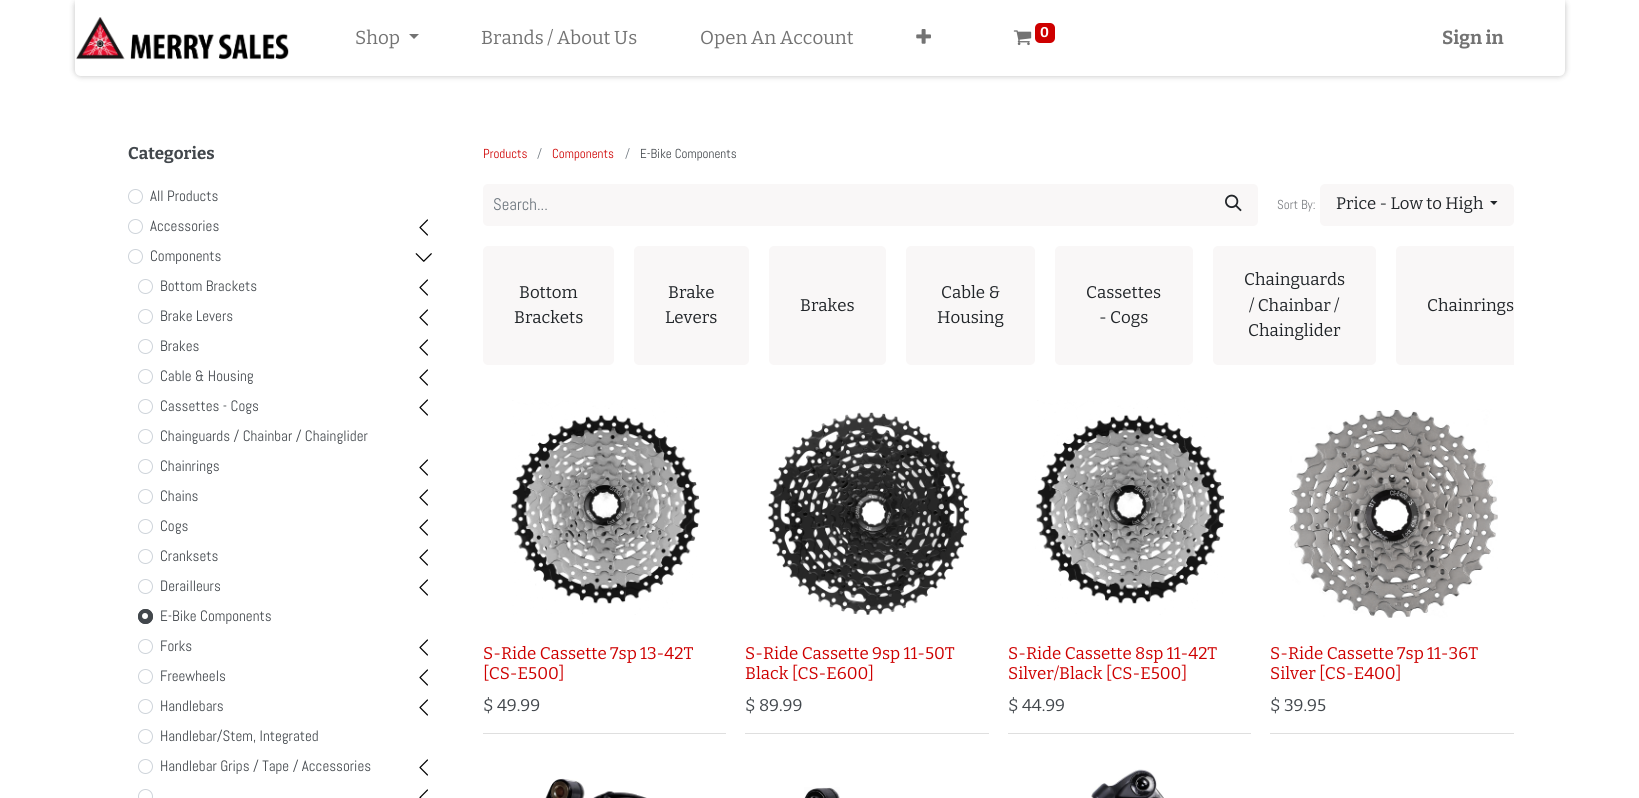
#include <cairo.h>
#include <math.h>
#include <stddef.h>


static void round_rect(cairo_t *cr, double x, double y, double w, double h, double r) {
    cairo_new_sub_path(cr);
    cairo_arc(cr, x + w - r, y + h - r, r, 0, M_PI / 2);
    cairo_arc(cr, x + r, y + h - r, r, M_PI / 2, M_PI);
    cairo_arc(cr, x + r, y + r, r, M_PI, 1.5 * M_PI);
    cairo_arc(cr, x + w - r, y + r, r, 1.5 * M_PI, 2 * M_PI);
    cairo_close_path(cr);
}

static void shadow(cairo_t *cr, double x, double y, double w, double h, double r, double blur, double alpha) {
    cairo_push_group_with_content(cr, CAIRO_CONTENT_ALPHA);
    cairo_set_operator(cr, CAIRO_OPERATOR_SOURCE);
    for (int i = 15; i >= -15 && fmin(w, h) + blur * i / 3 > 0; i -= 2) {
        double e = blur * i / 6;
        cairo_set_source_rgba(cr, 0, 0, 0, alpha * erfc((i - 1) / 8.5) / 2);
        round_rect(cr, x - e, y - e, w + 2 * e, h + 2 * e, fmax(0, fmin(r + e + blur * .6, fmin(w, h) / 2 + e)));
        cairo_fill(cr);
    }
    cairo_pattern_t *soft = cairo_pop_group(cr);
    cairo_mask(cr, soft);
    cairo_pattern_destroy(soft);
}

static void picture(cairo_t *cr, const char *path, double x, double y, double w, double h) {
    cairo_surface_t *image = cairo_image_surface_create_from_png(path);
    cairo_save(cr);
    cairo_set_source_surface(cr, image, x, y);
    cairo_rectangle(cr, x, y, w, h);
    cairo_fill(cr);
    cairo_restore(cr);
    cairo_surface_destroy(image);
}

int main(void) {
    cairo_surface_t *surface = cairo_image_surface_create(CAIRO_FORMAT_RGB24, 1639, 798);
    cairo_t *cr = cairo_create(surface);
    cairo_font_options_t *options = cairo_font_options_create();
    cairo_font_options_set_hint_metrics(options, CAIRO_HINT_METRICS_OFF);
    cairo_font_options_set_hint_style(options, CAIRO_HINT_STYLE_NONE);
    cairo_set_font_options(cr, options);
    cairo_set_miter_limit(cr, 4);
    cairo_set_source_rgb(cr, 1, 1, 1);
    cairo_paint(cr);
    cairo_set_source_rgb(cr, 0, 0, 0);
    shadow(cr, 75, 0, 1490, 76, 6, 3, 0.25);
    cairo_set_source_rgb(cr, 1, 1, 1);
    cairo_new_path(cr);
    cairo_move_to(cr, 75, 0);
    cairo_line_to(cr, 1565, 0);
    cairo_line_to(cr, 1565, 70);
    cairo_curve_to(cr, 1565, 73.5, 1562.5, 76, 1559, 76);
    cairo_line_to(cr, 81, 76);
    cairo_curve_to(cr, 77.5, 76, 75, 73.5, 75, 70);
    cairo_close_path(cr);
    cairo_fill(cr);
    picture(cr, "img1.png", 76, 17, 213, 43);
    cairo_select_font_face(cr, "Bitter", CAIRO_FONT_SLANT_NORMAL, CAIRO_FONT_WEIGHT_NORMAL);
    cairo_set_font_size(cr, 18.75);
    cairo_set_source_rgb(cr, 0.451, 0.451, 0.451);
    cairo_move_to(cr, 355, 44);
    cairo_show_text(cr, "Shop");
    cairo_new_path(cr);
    cairo_move_to(cr, 409, 34);
    cairo_line_to(cr, 419, 34);
    cairo_line_to(cr, 414, 39);
    cairo_close_path(cr);
    cairo_fill(cr);
    cairo_move_to(cr, 481, 44);
    cairo_show_text(cr, "Brands / About Us");
    cairo_move_to(cr, 700, 44);
    cairo_show_text(cr, "Open An Account");
    picture(cr, "img2.png", 916, 29, 15, 15);
    picture(cr, "img3.png", 1013, 30, 19, 16);
    cairo_set_source_rgb(cr, 0.808, 0, 0);
    round_rect(cr, 1035, 23, 20, 20, 5);
    cairo_fill(cr);
    cairo_select_font_face(cr, "Bitter", CAIRO_FONT_SLANT_NORMAL, CAIRO_FONT_WEIGHT_BOLD);
    cairo_set_font_size(cr, 14);
    cairo_set_source_rgb(cr, 1, 1, 1);
    cairo_move_to(cr, 1040, 37);
    cairo_show_text(cr, "0");
    cairo_set_font_size(cr, 18.75);
    cairo_set_source_rgb(cr, 0.451, 0.451, 0.451);
    cairo_move_to(cr, 1442, 44);
    cairo_show_text(cr, "Sign in");
    cairo_set_font_size(cr, 16.9);
    cairo_set_source_rgb(cr, 0.259, 0.278, 0.298);
    cairo_move_to(cr, 128, 159);
    cairo_show_text(cr, "Categories");
    cairo_new_path(cr);
    cairo_arc(cr, 135.5, 196.5, 7, 0, 2 * M_PI);
    cairo_set_source_rgb(cr, 0.808, 0.831, 0.855);
    cairo_set_line_width(cr, 1);
    cairo_stroke(cr);
    cairo_select_font_face(cr, "Abel", CAIRO_FONT_SLANT_NORMAL, CAIRO_FONT_WEIGHT_NORMAL);
    cairo_set_font_size(cr, 15);
    cairo_set_source_rgb(cr, 0.259, 0.278, 0.298);
    cairo_move_to(cr, 150, 201);
    cairo_show_text(cr, "All Products");
    cairo_new_path(cr);
    cairo_arc(cr, 135.5, 226.5, 7, 0, 2 * M_PI);
    cairo_set_source_rgb(cr, 0.808, 0.831, 0.855);
    cairo_stroke(cr);
    cairo_set_source_rgb(cr, 0.259, 0.278, 0.298);
    cairo_move_to(cr, 150, 231);
    cairo_show_text(cr, "Accessories");
    picture(cr, "img4.png", 419, 219, 9, 17);
    cairo_arc(cr, 135.5, 256.5, 7, 0, 2 * M_PI);
    cairo_set_source_rgb(cr, 0.808, 0.831, 0.855);
    cairo_stroke(cr);
    cairo_set_source_rgb(cr, 0.259, 0.278, 0.298);
    cairo_move_to(cr, 150, 261);
    cairo_show_text(cr, "Components");
    picture(cr, "img5.png", 415, 253, 17, 9);
    cairo_arc(cr, 145.5, 286.5, 7, 0, 2 * M_PI);
    cairo_set_source_rgb(cr, 0.808, 0.831, 0.855);
    cairo_stroke(cr);
    cairo_set_source_rgb(cr, 0.259, 0.278, 0.298);
    cairo_move_to(cr, 160, 291);
    cairo_show_text(cr, "Bottom Brackets");
    picture(cr, "img4.png", 419, 279, 9, 17);
    cairo_arc(cr, 145.5, 316.5, 7, 0, 2 * M_PI);
    cairo_set_source_rgb(cr, 0.808, 0.831, 0.855);
    cairo_stroke(cr);
    cairo_set_source_rgb(cr, 0.259, 0.278, 0.298);
    cairo_move_to(cr, 160, 321);
    cairo_show_text(cr, "Brake Levers");
    picture(cr, "img4.png", 419, 309, 9, 17);
    cairo_arc(cr, 145.5, 346.5, 7, 0, 2 * M_PI);
    cairo_set_source_rgb(cr, 0.808, 0.831, 0.855);
    cairo_stroke(cr);
    cairo_set_source_rgb(cr, 0.259, 0.278, 0.298);
    cairo_move_to(cr, 160, 351);
    cairo_show_text(cr, "Brakes");
    picture(cr, "img4.png", 419, 339, 9, 17);
    cairo_arc(cr, 145.5, 376.5, 7, 0, 2 * M_PI);
    cairo_set_source_rgb(cr, 0.808, 0.831, 0.855);
    cairo_stroke(cr);
    cairo_set_source_rgb(cr, 0.259, 0.278, 0.298);
    cairo_move_to(cr, 160, 381);
    cairo_show_text(cr, "Cable & Housing");
    picture(cr, "img4.png", 419, 369, 9, 17);
    cairo_arc(cr, 145.5, 406.5, 7, 0, 2 * M_PI);
    cairo_set_source_rgb(cr, 0.808, 0.831, 0.855);
    cairo_stroke(cr);
    cairo_set_source_rgb(cr, 0.259, 0.278, 0.298);
    cairo_move_to(cr, 160, 411);
    cairo_show_text(cr, "Cassettes - Cogs");
    picture(cr, "img4.png", 419, 399, 9, 17);
    cairo_arc(cr, 145.5, 436.5, 7, 0, 2 * M_PI);
    cairo_set_source_rgb(cr, 0.808, 0.831, 0.855);
    cairo_stroke(cr);
    cairo_set_source_rgb(cr, 0.259, 0.278, 0.298);
    cairo_move_to(cr, 160, 441);
    cairo_show_text(cr, "Chainguards / Chainbar / Chainglider");
    cairo_new_path(cr);
    cairo_arc(cr, 145.5, 466.5, 7, 0, 2 * M_PI);
    cairo_set_source_rgb(cr, 0.808, 0.831, 0.855);
    cairo_stroke(cr);
    cairo_set_source_rgb(cr, 0.259, 0.278, 0.298);
    cairo_move_to(cr, 160, 471);
    cairo_show_text(cr, "Chainrings");
    picture(cr, "img4.png", 419, 459, 9, 17);
    cairo_arc(cr, 145.5, 496.5, 7, 0, 2 * M_PI);
    cairo_set_source_rgb(cr, 0.808, 0.831, 0.855);
    cairo_stroke(cr);
    cairo_set_source_rgb(cr, 0.259, 0.278, 0.298);
    cairo_move_to(cr, 160, 501);
    cairo_show_text(cr, "Chains");
    picture(cr, "img4.png", 419, 489, 9, 17);
    cairo_arc(cr, 145.5, 526.5, 7, 0, 2 * M_PI);
    cairo_set_source_rgb(cr, 0.808, 0.831, 0.855);
    cairo_stroke(cr);
    cairo_set_source_rgb(cr, 0.259, 0.278, 0.298);
    cairo_move_to(cr, 160, 531);
    cairo_show_text(cr, "Cogs");
    picture(cr, "img4.png", 419, 519, 9, 17);
    cairo_arc(cr, 145.5, 556.5, 7, 0, 2 * M_PI);
    cairo_set_source_rgb(cr, 0.808, 0.831, 0.855);
    cairo_stroke(cr);
    cairo_set_source_rgb(cr, 0.259, 0.278, 0.298);
    cairo_move_to(cr, 160, 561);
    cairo_show_text(cr, "Cranksets");
    picture(cr, "img4.png", 419, 549, 9, 17);
    cairo_arc(cr, 145.5, 586.5, 7, 0, 2 * M_PI);
    cairo_set_source_rgb(cr, 0.808, 0.831, 0.855);
    cairo_stroke(cr);
    cairo_set_source_rgb(cr, 0.259, 0.278, 0.298);
    cairo_move_to(cr, 160, 591);
    cairo_show_text(cr, "Derailleurs");
    picture(cr, "img4.png", 419, 579, 9, 17);
    cairo_arc(cr, 145.5, 616.5, 7.5, 0, 2 * M_PI);
    cairo_fill(cr);
    cairo_set_source_rgb(cr, 1, 1, 1);
    cairo_arc(cr, 145, 616, 3, 0, 2 * M_PI);
    cairo_fill(cr);
    cairo_arc(cr, 145.5, 616.5, 7, 0, 2 * M_PI);
    cairo_set_source_rgb(cr, 0.259, 0.278, 0.298);
    cairo_stroke(cr);
    cairo_move_to(cr, 160, 621);
    cairo_show_text(cr, "E-Bike Components");
    cairo_new_path(cr);
    cairo_arc(cr, 145.5, 646.5, 7, 0, 2 * M_PI);
    cairo_set_source_rgb(cr, 0.808, 0.831, 0.855);
    cairo_stroke(cr);
    cairo_set_source_rgb(cr, 0.259, 0.278, 0.298);
    cairo_move_to(cr, 160, 651);
    cairo_show_text(cr, "Forks");
    picture(cr, "img4.png", 419, 639, 9, 17);
    cairo_arc(cr, 145.5, 676.5, 7, 0, 2 * M_PI);
    cairo_set_source_rgb(cr, 0.808, 0.831, 0.855);
    cairo_stroke(cr);
    cairo_set_source_rgb(cr, 0.259, 0.278, 0.298);
    cairo_move_to(cr, 160, 681);
    cairo_show_text(cr, "Freewheels");
    picture(cr, "img4.png", 419, 669, 9, 17);
    cairo_arc(cr, 145.5, 706.5, 7, 0, 2 * M_PI);
    cairo_set_source_rgb(cr, 0.808, 0.831, 0.855);
    cairo_stroke(cr);
    cairo_set_source_rgb(cr, 0.259, 0.278, 0.298);
    cairo_move_to(cr, 160, 711);
    cairo_show_text(cr, "Handlebars");
    picture(cr, "img4.png", 419, 699, 9, 17);
    cairo_arc(cr, 145.5, 736.5, 7, 0, 2 * M_PI);
    cairo_set_source_rgb(cr, 0.808, 0.831, 0.855);
    cairo_stroke(cr);
    cairo_set_source_rgb(cr, 0.259, 0.278, 0.298);
    cairo_move_to(cr, 160, 741);
    cairo_show_text(cr, "Handlebar/Stem, Integrated");
    cairo_new_path(cr);
    cairo_arc(cr, 145.5, 766.5, 7, 0, 2 * M_PI);
    cairo_set_source_rgb(cr, 0.808, 0.831, 0.855);
    cairo_stroke(cr);
    cairo_set_source_rgb(cr, 0.259, 0.278, 0.298);
    cairo_move_to(cr, 160, 771);
    cairo_show_text(cr, "Handlebar Grips / Tape / Accessories");
    picture(cr, "img4.png", 419, 759, 9, 17);
    cairo_arc(cr, 145.5, 796.5, 7, 0, 2 * M_PI);
    cairo_set_source_rgb(cr, 0.808, 0.831, 0.855);
    cairo_stroke(cr);
    picture(cr, "img6.png", 419, 789, 9, 9);
    cairo_set_font_size(cr, 13);
    cairo_set_source_rgb(cr, 0.808, 0, 0);
    cairo_move_to(cr, 483, 158);
    cairo_show_text(cr, "Products");
    cairo_set_source_rgb(cr, 0.424, 0.459, 0.49);
    cairo_move_to(cr, 537, 158);
    cairo_show_text(cr, "/");
    cairo_set_source_rgb(cr, 0.808, 0, 0);
    cairo_move_to(cr, 552, 158);
    cairo_show_text(cr, "Components");
    cairo_set_source_rgb(cr, 0.424, 0.459, 0.49);
    cairo_move_to(cr, 625, 158);
    cairo_show_text(cr, "/");
    cairo_set_source_rgb(cr, 0.259, 0.278, 0.298);
    cairo_move_to(cr, 640, 158);
    cairo_show_text(cr, "E-Bike Components");
    cairo_set_source_rgb(cr, 0.976, 0.965, 0.965);
    cairo_new_path(cr);
    cairo_move_to(cr, 488, 184);
    cairo_line_to(cr, 1210, 184);
    cairo_line_to(cr, 1210, 226);
    cairo_line_to(cr, 488, 226);
    cairo_curve_to(cr, 485, 226, 483, 224, 483, 221);
    cairo_line_to(cr, 483, 189);
    cairo_curve_to(cr, 483, 186, 485, 184, 488, 184);
    cairo_close_path(cr);
    cairo_fill(cr);
    cairo_set_font_size(cr, 16.75);
    cairo_set_source_rgb(cr, 0.424, 0.459, 0.49);
    cairo_move_to(cr, 493, 210);
    cairo_show_text(cr, "Search...");
    cairo_set_source_rgb(cr, 0.976, 0.965, 0.965);
    cairo_new_path(cr);
    cairo_move_to(cr, 1209, 184);
    cairo_line_to(cr, 1253, 184);
    cairo_curve_to(cr, 1256, 184, 1258, 186, 1258, 189);
    cairo_line_to(cr, 1258, 221);
    cairo_curve_to(cr, 1258, 224, 1256, 226, 1253, 226);
    cairo_line_to(cr, 1209, 226);
    cairo_close_path(cr);
    cairo_fill(cr);
    picture(cr, "img7.png", 1225, 194, 17, 18);
    cairo_set_font_size(cr, 13);
    cairo_set_source_rgb(cr, 0.482, 0.494, 0.51);
    cairo_move_to(cr, 1277, 209);
    cairo_show_text(cr, "Sort By:");
    cairo_set_source_rgb(cr, 0.976, 0.965, 0.965);
    round_rect(cr, 1320, 184, 194, 42, 5);
    cairo_fill(cr);
    cairo_select_font_face(cr, "Bitter", CAIRO_FONT_SLANT_NORMAL, CAIRO_FONT_WEIGHT_NORMAL);
    cairo_set_font_size(cr, 16.75);
    cairo_set_source_rgb(cr, 0.129, 0.145, 0.161);
    cairo_move_to(cr, 1336, 209);
    cairo_show_text(cr, "Price - Low to High");
    cairo_new_path(cr);
    cairo_move_to(cr, 1490, 201);
    cairo_line_to(cr, 1497.5, 201);
    cairo_line_to(cr, 1494, 205);
    cairo_close_path(cr);
    cairo_fill(cr);
    cairo_set_source_rgb(cr, 0.976, 0.965, 0.965);
    round_rect(cr, 483, 246, 131, 119, 5);
    cairo_fill(cr);
    cairo_set_font_size(cr, 16.9);
    cairo_set_source_rgb(cr, 0.129, 0.145, 0.161);
    cairo_move_to(cr, 519, 298);
    cairo_show_text(cr, "Bottom");
    cairo_move_to(cr, 514, 323);
    cairo_show_text(cr, "Brackets");
    cairo_set_source_rgb(cr, 0.976, 0.965, 0.965);
    round_rect(cr, 634, 246, 115, 119, 5);
    cairo_fill(cr);
    cairo_set_source_rgb(cr, 0.129, 0.145, 0.161);
    cairo_move_to(cr, 668, 298);
    cairo_show_text(cr, "Brake");
    cairo_move_to(cr, 665, 323);
    cairo_show_text(cr, "Levers");
    cairo_set_source_rgb(cr, 0.976, 0.965, 0.965);
    round_rect(cr, 769, 246, 117, 119, 5);
    cairo_fill(cr);
    cairo_set_source_rgb(cr, 0.129, 0.145, 0.161);
    cairo_move_to(cr, 800, 311);
    cairo_show_text(cr, "Brakes");
    cairo_set_source_rgb(cr, 0.976, 0.965, 0.965);
    round_rect(cr, 906, 246, 129, 119, 5);
    cairo_fill(cr);
    cairo_set_source_rgb(cr, 0.129, 0.145, 0.161);
    cairo_move_to(cr, 941, 298);
    cairo_show_text(cr, "Cable &");
    cairo_move_to(cr, 937, 323);
    cairo_show_text(cr, "Housing");
    cairo_set_source_rgb(cr, 0.976, 0.965, 0.965);
    round_rect(cr, 1055, 246, 138, 119, 5);
    cairo_fill(cr);
    cairo_set_source_rgb(cr, 0.129, 0.145, 0.161);
    cairo_move_to(cr, 1086, 298);
    cairo_show_text(cr, "Cassettes");
    cairo_move_to(cr, 1099, 323);
    cairo_show_text(cr, "- Cogs");
    cairo_set_source_rgb(cr, 0.976, 0.965, 0.965);
    round_rect(cr, 1213, 246, 163, 119, 5);
    cairo_fill(cr);
    cairo_set_source_rgb(cr, 0.129, 0.145, 0.161);
    cairo_move_to(cr, 1244, 285);
    cairo_show_text(cr, "Chainguards");
    cairo_move_to(cr, 1249, 311);
    cairo_show_text(cr, "/ Chainbar /");
    cairo_move_to(cr, 1248, 336);
    cairo_show_text(cr, "Chainglider");
    cairo_set_source_rgb(cr, 0.976, 0.965, 0.965);
    cairo_new_path(cr);
    cairo_move_to(cr, 1401, 246);
    cairo_line_to(cr, 1514, 246);
    cairo_line_to(cr, 1514, 365);
    cairo_line_to(cr, 1401, 365);
    cairo_curve_to(cr, 1398, 365, 1396, 363, 1396, 360);
    cairo_line_to(cr, 1396, 251);
    cairo_curve_to(cr, 1396, 248, 1398, 246, 1401, 246);
    cairo_close_path(cr);
    cairo_fill(cr);
    cairo_set_source_rgb(cr, 0.129, 0.145, 0.161);
    cairo_move_to(cr, 1427, 311);
    cairo_show_text(cr, "Chainrings");
    cairo_set_source_rgb(cr, 0.875, 0.875, 0.875);
    cairo_rectangle(cr, 483, 733, 243, 1);
    cairo_fill(cr);
    picture(cr, "img8.png", 510, 400, 190, 215);
    cairo_set_source_rgb(cr, 0.808, 0, 0);
    cairo_move_to(cr, 483, 659);
    cairo_show_text(cr, "S-Ride Cassette 7sp 13-42T");
    cairo_move_to(cr, 483, 679);
    cairo_show_text(cr, "[CS-E500]");
    cairo_set_source_rgb(cr, 0.259, 0.278, 0.298);
    cairo_move_to(cr, 483, 711);
    cairo_show_text(cr, "$ 49.99");
    cairo_set_source_rgb(cr, 0.875, 0.875, 0.875);
    cairo_rectangle(cr, 745, 733, 244, 1);
    cairo_fill(cr);
    picture(cr, "img9.png", 767, 412, 203, 203);
    cairo_set_source_rgb(cr, 0.808, 0, 0);
    cairo_move_to(cr, 745, 659);
    cairo_show_text(cr, "S-Ride Cassette 9sp 11-50T");
    cairo_move_to(cr, 745, 679);
    cairo_show_text(cr, "Black [CS-E600]");
    cairo_set_source_rgb(cr, 0.259, 0.278, 0.298);
    cairo_move_to(cr, 745, 711);
    cairo_show_text(cr, "$ 89.99");
    cairo_set_source_rgb(cr, 0.875, 0.875, 0.875);
    cairo_rectangle(cr, 1008, 733, 243, 1);
    cairo_fill(cr);
    picture(cr, "img8.png", 1035, 400, 190, 215);
    cairo_set_source_rgb(cr, 0.808, 0, 0);
    cairo_move_to(cr, 1008, 659);
    cairo_show_text(cr, "S-Ride Cassette 8sp 11-42T");
    cairo_move_to(cr, 1008, 679);
    cairo_show_text(cr, "Silver/Black [CS-E500]");
    cairo_set_source_rgb(cr, 0.259, 0.278, 0.298);
    cairo_move_to(cr, 1008, 711);
    cairo_show_text(cr, "$ 44.99");
    cairo_set_source_rgb(cr, 0.875, 0.875, 0.875);
    cairo_rectangle(cr, 1270, 733, 244, 1);
    cairo_fill(cr);
    picture(cr, "img10.png", 1289, 409, 209, 209);
    cairo_set_source_rgb(cr, 0.808, 0, 0);
    cairo_move_to(cr, 1270, 659);
    cairo_show_text(cr, "S-Ride Cassette 7sp 11-36T");
    cairo_move_to(cr, 1270, 679);
    cairo_show_text(cr, "Silver [CS-E400]");
    cairo_set_source_rgb(cr, 0.259, 0.278, 0.298);
    cairo_move_to(cr, 1270, 711);
    cairo_show_text(cr, "$ 39.95");
    picture(cr, "img11.png", 545, 778, 102, 20);
    picture(cr, "img12.png", 804, 787, 36, 11);
    picture(cr, "img13.png", 1091, 769, 73, 29);
    cairo_surface_write_to_png(surface, "page.png");
    cairo_font_options_destroy(options);
    cairo_destroy(cr);
    cairo_surface_destroy(surface);
    return 0;
}
